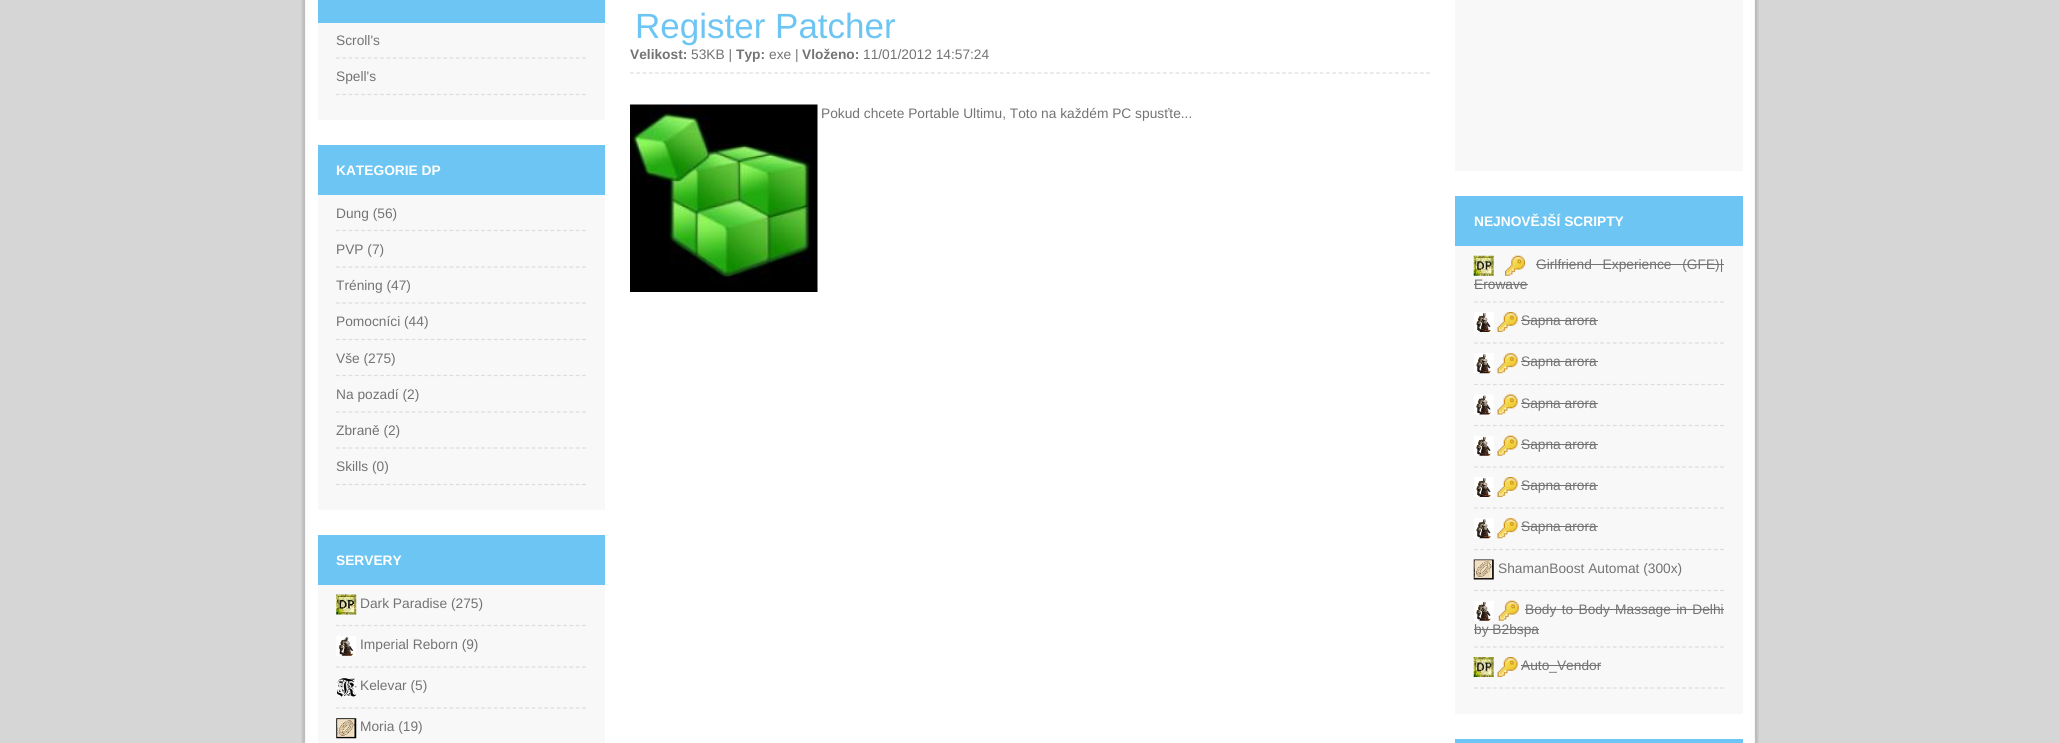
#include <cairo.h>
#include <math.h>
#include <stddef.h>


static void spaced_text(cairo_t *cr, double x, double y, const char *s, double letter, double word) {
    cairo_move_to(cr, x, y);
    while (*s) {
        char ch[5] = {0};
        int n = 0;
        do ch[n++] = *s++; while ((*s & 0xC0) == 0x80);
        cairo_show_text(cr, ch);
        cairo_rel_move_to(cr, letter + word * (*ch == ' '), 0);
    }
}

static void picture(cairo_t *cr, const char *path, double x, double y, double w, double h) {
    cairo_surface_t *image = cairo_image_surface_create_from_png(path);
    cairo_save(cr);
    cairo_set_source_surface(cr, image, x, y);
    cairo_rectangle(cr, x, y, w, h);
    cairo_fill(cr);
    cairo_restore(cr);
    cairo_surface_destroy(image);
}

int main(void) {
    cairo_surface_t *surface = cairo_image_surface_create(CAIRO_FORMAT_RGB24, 2060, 743);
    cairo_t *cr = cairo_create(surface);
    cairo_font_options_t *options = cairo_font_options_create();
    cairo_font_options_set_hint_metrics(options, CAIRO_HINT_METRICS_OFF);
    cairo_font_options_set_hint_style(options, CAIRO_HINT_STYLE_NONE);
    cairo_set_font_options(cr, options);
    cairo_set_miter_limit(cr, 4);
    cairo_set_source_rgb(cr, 0.839, 0.839, 0.839);
    cairo_paint(cr);
    picture(cr, "img1.png", 301, 0, 1458, 743);
    cairo_set_source_rgb(cr, 0.427, 0.773, 0.953);
    cairo_rectangle(cr, 318, 0, 287, 23);
    cairo_fill(cr);
    cairo_set_source_rgb(cr, 0.969, 0.969, 0.969);
    cairo_rectangle(cr, 318, 23, 287, 97);
    cairo_fill(cr);
    cairo_new_path(cr);
    cairo_move_to(cr, 336, 58);
    cairo_line_to(cr, 586, 58);
    cairo_set_source_rgb(cr, 0.863, 0.863, 0.863);
    cairo_set_line_width(cr, 1.2);
    cairo_set_dash(cr, (double[]){3.75, 2.56}, 2, 0);
    cairo_stroke(cr);
    cairo_select_font_face(cr, "Liberation Sans", CAIRO_FONT_SLANT_NORMAL, CAIRO_FONT_WEIGHT_NORMAL);
    cairo_set_font_size(cr, 13.75);
    cairo_set_source_rgb(cr, 0.451, 0.451, 0.451);
    cairo_move_to(cr, 336, 45);
    cairo_show_text(cr, "Scroll's");
    cairo_new_path(cr);
    cairo_move_to(cr, 336, 94.5);
    cairo_line_to(cr, 586, 94.5);
    cairo_set_source_rgb(cr, 0.863, 0.863, 0.863);
    cairo_stroke(cr);
    cairo_set_source_rgb(cr, 0.451, 0.451, 0.451);
    cairo_move_to(cr, 336, 81);
    cairo_show_text(cr, "Spell's");
    cairo_set_source_rgb(cr, 0.427, 0.773, 0.953);
    cairo_rectangle(cr, 318, 145, 287, 50);
    cairo_fill(cr);
    cairo_select_font_face(cr, "Liberation Sans", CAIRO_FONT_SLANT_NORMAL, CAIRO_FONT_WEIGHT_BOLD);
    cairo_set_source_rgb(cr, 1, 1, 1);
    cairo_move_to(cr, 336, 175);
    cairo_show_text(cr, "KATEGORIE DP");
    cairo_set_source_rgb(cr, 0.969, 0.969, 0.969);
    cairo_rectangle(cr, 318, 195, 287, 315);
    cairo_fill(cr);
    cairo_new_path(cr);
    cairo_move_to(cr, 336, 230.5);
    cairo_line_to(cr, 586, 230.5);
    cairo_set_source_rgb(cr, 0.863, 0.863, 0.863);
    cairo_stroke(cr);
    cairo_select_font_face(cr, "Liberation Sans", CAIRO_FONT_SLANT_NORMAL, CAIRO_FONT_WEIGHT_NORMAL);
    cairo_set_source_rgb(cr, 0.451, 0.451, 0.451);
    cairo_move_to(cr, 336, 218);
    cairo_show_text(cr, "Dung (56)");
    cairo_new_path(cr);
    cairo_move_to(cr, 336, 267);
    cairo_line_to(cr, 586, 267);
    cairo_set_source_rgb(cr, 0.863, 0.863, 0.863);
    cairo_stroke(cr);
    cairo_set_source_rgb(cr, 0.451, 0.451, 0.451);
    cairo_move_to(cr, 336, 254);
    cairo_show_text(cr, "PVP (7)");
    cairo_new_path(cr);
    cairo_move_to(cr, 336, 303);
    cairo_line_to(cr, 586, 303);
    cairo_set_source_rgb(cr, 0.863, 0.863, 0.863);
    cairo_stroke(cr);
    cairo_set_source_rgb(cr, 0.451, 0.451, 0.451);
    cairo_move_to(cr, 336, 290);
    cairo_show_text(cr, "Tréning (47)");
    cairo_new_path(cr);
    cairo_move_to(cr, 336, 339.5);
    cairo_line_to(cr, 586, 339.5);
    cairo_set_source_rgb(cr, 0.863, 0.863, 0.863);
    cairo_stroke(cr);
    cairo_set_source_rgb(cr, 0.451, 0.451, 0.451);
    cairo_move_to(cr, 336, 326);
    cairo_show_text(cr, "Pomocníci (44)");
    cairo_new_path(cr);
    cairo_move_to(cr, 336, 375.5);
    cairo_line_to(cr, 586, 375.5);
    cairo_set_source_rgb(cr, 0.863, 0.863, 0.863);
    cairo_stroke(cr);
    cairo_set_source_rgb(cr, 0.451, 0.451, 0.451);
    cairo_move_to(cr, 336, 363);
    cairo_show_text(cr, "Vše (275)");
    cairo_new_path(cr);
    cairo_move_to(cr, 336, 412);
    cairo_line_to(cr, 586, 412);
    cairo_set_source_rgb(cr, 0.863, 0.863, 0.863);
    cairo_stroke(cr);
    cairo_set_source_rgb(cr, 0.451, 0.451, 0.451);
    cairo_move_to(cr, 336, 399);
    cairo_show_text(cr, "Na pozadí (2)");
    cairo_new_path(cr);
    cairo_move_to(cr, 336, 448);
    cairo_line_to(cr, 586, 448);
    cairo_set_source_rgb(cr, 0.863, 0.863, 0.863);
    cairo_stroke(cr);
    cairo_set_source_rgb(cr, 0.451, 0.451, 0.451);
    cairo_move_to(cr, 336, 435);
    cairo_show_text(cr, "Zbraně (2)");
    cairo_new_path(cr);
    cairo_move_to(cr, 336, 484.5);
    cairo_line_to(cr, 586, 484.5);
    cairo_set_source_rgb(cr, 0.863, 0.863, 0.863);
    cairo_stroke(cr);
    cairo_set_source_rgb(cr, 0.451, 0.451, 0.451);
    cairo_move_to(cr, 336, 471);
    cairo_show_text(cr, "Skills (0)");
    cairo_set_source_rgb(cr, 0.427, 0.773, 0.953);
    cairo_rectangle(cr, 318, 535, 287, 50);
    cairo_fill(cr);
    cairo_select_font_face(cr, "Liberation Sans", CAIRO_FONT_SLANT_NORMAL, CAIRO_FONT_WEIGHT_BOLD);
    cairo_set_source_rgb(cr, 1, 1, 1);
    cairo_move_to(cr, 336, 565);
    cairo_show_text(cr, "SERVERY");
    cairo_set_source_rgb(cr, 0.969, 0.969, 0.969);
    cairo_rectangle(cr, 318, 585, 287, 158);
    cairo_fill(cr);
    cairo_new_path(cr);
    cairo_move_to(cr, 336, 625.5);
    cairo_line_to(cr, 586, 625.5);
    cairo_set_source_rgb(cr, 0.863, 0.863, 0.863);
    cairo_stroke(cr);
    picture(cr, "img2.png", 336, 594, 21, 21);
    cairo_select_font_face(cr, "Liberation Sans", CAIRO_FONT_SLANT_NORMAL, CAIRO_FONT_WEIGHT_NORMAL);
    cairo_set_source_rgb(cr, 0.451, 0.451, 0.451);
    cairo_move_to(cr, 360, 608);
    cairo_show_text(cr, "Dark Paradise (275)");
    cairo_new_path(cr);
    cairo_move_to(cr, 336, 667);
    cairo_line_to(cr, 586, 667);
    cairo_set_source_rgb(cr, 0.863, 0.863, 0.863);
    cairo_stroke(cr);
    picture(cr, "img3.png", 336, 636, 20, 20);
    cairo_set_source_rgb(cr, 0.451, 0.451, 0.451);
    cairo_move_to(cr, 360, 649);
    cairo_show_text(cr, "Imperial Reborn (9)");
    cairo_new_path(cr);
    cairo_move_to(cr, 336, 708);
    cairo_line_to(cr, 586, 708);
    cairo_set_source_rgb(cr, 0.863, 0.863, 0.863);
    cairo_stroke(cr);
    picture(cr, "img4.png", 337, 678, 20, 19);
    cairo_set_source_rgb(cr, 0.451, 0.451, 0.451);
    cairo_move_to(cr, 360, 690);
    cairo_show_text(cr, "Kelevar (5)");
    picture(cr, "img5.png", 336, 718, 21, 21);
    cairo_move_to(cr, 360, 731);
    cairo_show_text(cr, "Moria (19)");
    cairo_set_font_size(cr, 35);
    cairo_set_source_rgb(cr, 0.427, 0.773, 0.953);
    cairo_move_to(cr, 635, 38);
    cairo_show_text(cr, "Register Patcher");
    cairo_new_path(cr);
    cairo_move_to(cr, 630, 73);
    cairo_line_to(cr, 1430, 73);
    cairo_set_source_rgb(cr, 0.863, 0.863, 0.863);
    cairo_set_dash(cr, (double[]){3.75, 2.52}, 2, 0);
    cairo_stroke(cr);
    cairo_select_font_face(cr, "Liberation Sans", CAIRO_FONT_SLANT_NORMAL, CAIRO_FONT_WEIGHT_BOLD);
    cairo_set_font_size(cr, 13.75);
    cairo_set_source_rgb(cr, 0.451, 0.451, 0.451);
    cairo_move_to(cr, 630, 59);
    cairo_show_text(cr, "Velikost:");
    cairo_select_font_face(cr, "Liberation Sans", CAIRO_FONT_SLANT_NORMAL, CAIRO_FONT_WEIGHT_NORMAL);
    cairo_move_to(cr, 691, 59);
    cairo_show_text(cr, "53KB |");
    cairo_select_font_face(cr, "Liberation Sans", CAIRO_FONT_SLANT_NORMAL, CAIRO_FONT_WEIGHT_BOLD);
    cairo_move_to(cr, 736, 59);
    cairo_show_text(cr, "Typ:");
    cairo_select_font_face(cr, "Liberation Sans", CAIRO_FONT_SLANT_NORMAL, CAIRO_FONT_WEIGHT_NORMAL);
    cairo_move_to(cr, 769, 59);
    cairo_show_text(cr, "exe |");
    cairo_select_font_face(cr, "Liberation Sans", CAIRO_FONT_SLANT_NORMAL, CAIRO_FONT_WEIGHT_BOLD);
    cairo_move_to(cr, 802, 59);
    cairo_show_text(cr, "Vloženo:");
    cairo_select_font_face(cr, "Liberation Sans", CAIRO_FONT_SLANT_NORMAL, CAIRO_FONT_WEIGHT_NORMAL);
    cairo_move_to(cr, 863, 59);
    cairo_show_text(cr, "11/01/2012 14:57:24");
    picture(cr, "img6.png", 630, 104, 188, 188);
    cairo_move_to(cr, 821, 118);
    cairo_show_text(cr, "Pokud chcete Portable Ultimu, Toto na každém PC spusťte...");
    cairo_set_source_rgb(cr, 0.969, 0.969, 0.969);
    cairo_rectangle(cr, 1455, 0, 288, 171);
    cairo_fill(cr);
    cairo_set_source_rgb(cr, 0.427, 0.773, 0.953);
    cairo_rectangle(cr, 1455, 196, 288, 50);
    cairo_fill(cr);
    cairo_select_font_face(cr, "Liberation Sans", CAIRO_FONT_SLANT_NORMAL, CAIRO_FONT_WEIGHT_BOLD);
    cairo_set_source_rgb(cr, 1, 1, 1);
    cairo_move_to(cr, 1474, 226);
    cairo_show_text(cr, "NEJNOVĚJŠÍ SCRIPTY");
    cairo_set_source_rgb(cr, 0.969, 0.969, 0.969);
    cairo_rectangle(cr, 1455, 246, 288, 468);
    cairo_fill(cr);
    cairo_new_path(cr);
    cairo_move_to(cr, 1474, 302);
    cairo_line_to(cr, 1724, 302);
    cairo_set_source_rgb(cr, 0.863, 0.863, 0.863);
    cairo_set_dash(cr, (double[]){3.75, 2.56}, 2, 0);
    cairo_stroke(cr);
    picture(cr, "img7.png", 1473, 255, 21, 21);
    picture(cr, "img8.png", 1505, 255, 20, 21);
    cairo_select_font_face(cr, "Liberation Sans", CAIRO_FONT_SLANT_NORMAL, CAIRO_FONT_WEIGHT_NORMAL);
    cairo_set_source_rgb(cr, 0.451, 0.451, 0.451);
    spaced_text(cr, 1536, 269, "Girlfriend Experience (GFE)|", 0, 7);
    cairo_rectangle(cr, 1536, 264, 188, 1);
    cairo_fill(cr);
    cairo_move_to(cr, 1474, 289);
    cairo_show_text(cr, "Erowave");
    cairo_rectangle(cr, 1474, 284, 54, 1);
    cairo_fill(cr);
    cairo_new_path(cr);
    cairo_move_to(cr, 1474, 343);
    cairo_line_to(cr, 1724, 343);
    cairo_set_source_rgb(cr, 0.863, 0.863, 0.863);
    cairo_stroke(cr);
    picture(cr, "img9.png", 1474, 312, 20, 20);
    picture(cr, "img10.png", 1497, 312, 21, 20);
    cairo_set_source_rgb(cr, 0.451, 0.451, 0.451);
    cairo_move_to(cr, 1521, 325);
    cairo_show_text(cr, "Sapna arora");
    cairo_rectangle(cr, 1521, 320, 77, 1);
    cairo_fill(cr);
    cairo_new_path(cr);
    cairo_move_to(cr, 1474, 384.5);
    cairo_line_to(cr, 1724, 384.5);
    cairo_set_source_rgb(cr, 0.863, 0.863, 0.863);
    cairo_stroke(cr);
    picture(cr, "img11.png", 1474, 353, 20, 21);
    picture(cr, "img12.png", 1497, 353, 21, 21);
    cairo_set_source_rgb(cr, 0.451, 0.451, 0.451);
    cairo_move_to(cr, 1521, 366);
    cairo_show_text(cr, "Sapna arora");
    cairo_rectangle(cr, 1521, 361, 77, 1);
    cairo_fill(cr);
    cairo_new_path(cr);
    cairo_move_to(cr, 1474, 425.5);
    cairo_line_to(cr, 1724, 425.5);
    cairo_set_source_rgb(cr, 0.863, 0.863, 0.863);
    cairo_stroke(cr);
    picture(cr, "img13.png", 1474, 394, 20, 21);
    picture(cr, "img14.png", 1497, 394, 21, 21);
    cairo_set_source_rgb(cr, 0.451, 0.451, 0.451);
    cairo_move_to(cr, 1521, 408);
    cairo_show_text(cr, "Sapna arora");
    cairo_rectangle(cr, 1521, 403, 77, 1);
    cairo_fill(cr);
    cairo_new_path(cr);
    cairo_move_to(cr, 1474, 467);
    cairo_line_to(cr, 1724, 467);
    cairo_set_source_rgb(cr, 0.863, 0.863, 0.863);
    cairo_stroke(cr);
    picture(cr, "img15.png", 1474, 436, 20, 20);
    picture(cr, "img16.png", 1497, 435, 21, 21);
    cairo_set_source_rgb(cr, 0.451, 0.451, 0.451);
    cairo_move_to(cr, 1521, 449);
    cairo_show_text(cr, "Sapna arora");
    cairo_rectangle(cr, 1521, 444, 77, 1);
    cairo_fill(cr);
    cairo_new_path(cr);
    cairo_move_to(cr, 1474, 508);
    cairo_line_to(cr, 1724, 508);
    cairo_set_source_rgb(cr, 0.863, 0.863, 0.863);
    cairo_stroke(cr);
    picture(cr, "img9.png", 1474, 477, 20, 20);
    picture(cr, "img10.png", 1497, 477, 21, 20);
    cairo_set_source_rgb(cr, 0.451, 0.451, 0.451);
    cairo_move_to(cr, 1521, 490);
    cairo_show_text(cr, "Sapna arora");
    cairo_rectangle(cr, 1521, 485, 77, 1);
    cairo_fill(cr);
    cairo_new_path(cr);
    cairo_move_to(cr, 1474, 549.5);
    cairo_line_to(cr, 1724, 549.5);
    cairo_set_source_rgb(cr, 0.863, 0.863, 0.863);
    cairo_stroke(cr);
    picture(cr, "img11.png", 1474, 518, 20, 21);
    picture(cr, "img12.png", 1497, 518, 21, 21);
    cairo_set_source_rgb(cr, 0.451, 0.451, 0.451);
    cairo_move_to(cr, 1521, 531);
    cairo_show_text(cr, "Sapna arora");
    cairo_rectangle(cr, 1521, 526, 77, 1);
    cairo_fill(cr);
    cairo_new_path(cr);
    cairo_move_to(cr, 1474, 590.5);
    cairo_line_to(cr, 1724, 590.5);
    cairo_set_source_rgb(cr, 0.863, 0.863, 0.863);
    cairo_stroke(cr);
    picture(cr, "img17.png", 1473, 559, 21, 21);
    cairo_set_source_rgb(cr, 0.451, 0.451, 0.451);
    cairo_move_to(cr, 1498, 573);
    cairo_show_text(cr, "ShamanBoost Automat (300x)");
    cairo_new_path(cr);
    cairo_move_to(cr, 1474, 647);
    cairo_line_to(cr, 1724, 647);
    cairo_set_source_rgb(cr, 0.863, 0.863, 0.863);
    cairo_stroke(cr);
    picture(cr, "img18.png", 1474, 601, 20, 20);
    picture(cr, "img19.png", 1498, 600, 21, 21);
    cairo_set_source_rgb(cr, 0.451, 0.451, 0.451);
    spaced_text(cr, 1525, 614, "Body to Body Massage in Delhi", 0, 1.5);
    cairo_rectangle(cr, 1525, 609, 199, 1);
    cairo_fill(cr);
    cairo_move_to(cr, 1474, 634);
    cairo_show_text(cr, "by B2bspa");
    cairo_rectangle(cr, 1474, 629, 65, 1);
    cairo_fill(cr);
    cairo_new_path(cr);
    cairo_move_to(cr, 1474, 688);
    cairo_line_to(cr, 1724, 688);
    cairo_set_source_rgb(cr, 0.863, 0.863, 0.863);
    cairo_stroke(cr);
    picture(cr, "img20.png", 1473, 657, 21, 20);
    picture(cr, "img21.png", 1497, 657, 21, 20);
    cairo_set_source_rgb(cr, 0.451, 0.451, 0.451);
    cairo_move_to(cr, 1521, 670);
    cairo_show_text(cr, "Auto_Vendor");
    cairo_rectangle(cr, 1521, 665, 80, 1);
    cairo_fill(cr);
    cairo_set_source_rgb(cr, 0.427, 0.773, 0.953);
    cairo_rectangle(cr, 1455, 739, 288, 4);
    cairo_fill(cr);
    cairo_surface_write_to_png(surface, "page.png");
    cairo_font_options_destroy(options);
    cairo_destroy(cr);
    cairo_surface_destroy(surface);
    return 0;
}
